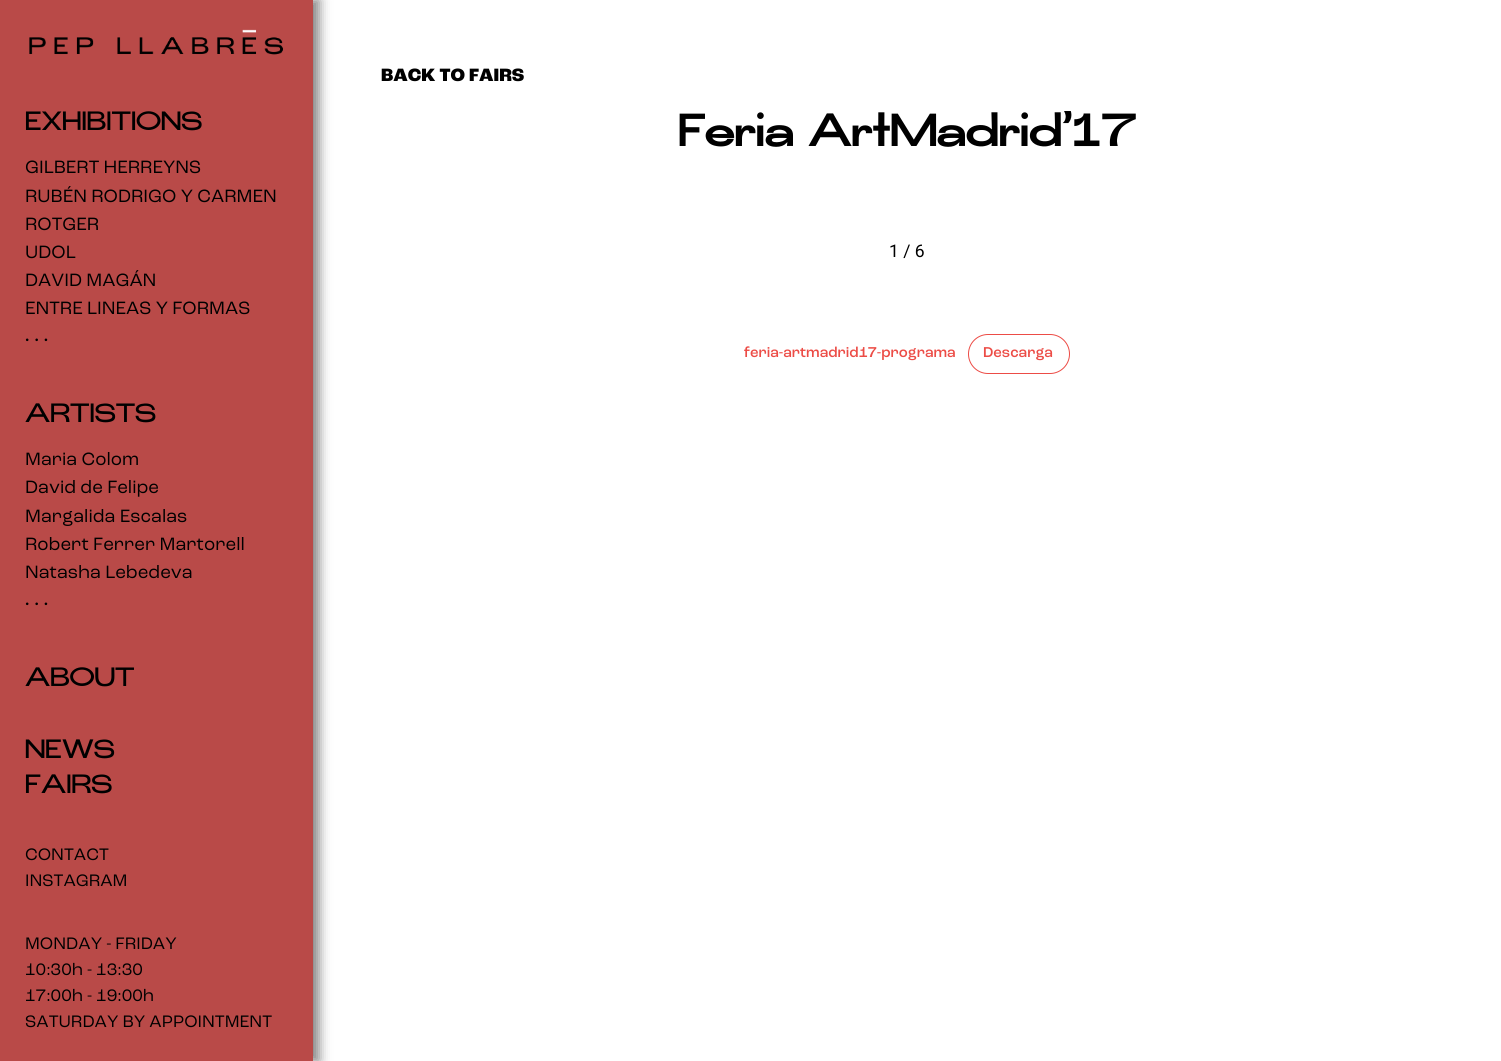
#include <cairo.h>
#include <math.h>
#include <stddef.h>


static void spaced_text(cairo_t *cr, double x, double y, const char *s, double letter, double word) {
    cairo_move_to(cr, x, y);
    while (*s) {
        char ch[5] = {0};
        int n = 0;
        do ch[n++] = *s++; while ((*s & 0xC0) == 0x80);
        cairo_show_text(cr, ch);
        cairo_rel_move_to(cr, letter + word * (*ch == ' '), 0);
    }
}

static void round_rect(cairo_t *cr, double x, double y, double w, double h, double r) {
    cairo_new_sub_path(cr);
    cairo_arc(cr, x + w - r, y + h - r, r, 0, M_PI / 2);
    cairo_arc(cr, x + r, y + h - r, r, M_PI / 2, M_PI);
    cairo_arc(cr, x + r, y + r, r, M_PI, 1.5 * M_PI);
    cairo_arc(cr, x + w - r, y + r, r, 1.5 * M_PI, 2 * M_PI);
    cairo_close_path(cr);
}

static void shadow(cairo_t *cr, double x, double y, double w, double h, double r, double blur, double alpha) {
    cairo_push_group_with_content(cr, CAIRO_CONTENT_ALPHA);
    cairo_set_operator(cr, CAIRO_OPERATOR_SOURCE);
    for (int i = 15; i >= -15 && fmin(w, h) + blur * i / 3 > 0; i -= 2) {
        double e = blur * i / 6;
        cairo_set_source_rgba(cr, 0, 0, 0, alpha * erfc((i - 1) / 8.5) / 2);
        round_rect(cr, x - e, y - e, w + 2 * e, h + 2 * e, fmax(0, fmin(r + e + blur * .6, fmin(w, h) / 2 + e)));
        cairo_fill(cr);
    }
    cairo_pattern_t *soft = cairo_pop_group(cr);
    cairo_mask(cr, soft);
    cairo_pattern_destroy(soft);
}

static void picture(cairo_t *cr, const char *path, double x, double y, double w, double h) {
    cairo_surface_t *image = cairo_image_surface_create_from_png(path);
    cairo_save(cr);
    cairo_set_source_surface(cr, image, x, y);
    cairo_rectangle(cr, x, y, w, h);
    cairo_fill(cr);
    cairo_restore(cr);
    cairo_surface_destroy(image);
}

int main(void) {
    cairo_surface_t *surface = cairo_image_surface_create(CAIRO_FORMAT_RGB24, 1501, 1061);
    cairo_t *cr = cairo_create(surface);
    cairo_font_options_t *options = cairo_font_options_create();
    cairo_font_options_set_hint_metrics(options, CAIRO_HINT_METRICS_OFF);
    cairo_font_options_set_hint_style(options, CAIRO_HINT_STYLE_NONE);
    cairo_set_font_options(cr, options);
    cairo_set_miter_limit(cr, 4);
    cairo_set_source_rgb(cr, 1, 1, 1);
    cairo_paint(cr);
    cairo_set_source_rgb(cr, 0, 0, 0);
    shadow(cr, 6, 0, 313, 1061, 0, 6, 0.5);
    cairo_set_source_rgb(cr, 0.725, 0.29, 0.282);
    cairo_rectangle(cr, 0, 0, 313, 1061);
    cairo_fill(cr);
    picture(cr, "img1.png", 29, 29, 254, 26);
    cairo_select_font_face(cr, "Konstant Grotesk", CAIRO_FONT_SLANT_NORMAL, CAIRO_FONT_WEIGHT_NORMAL);
    cairo_set_font_size(cr, 23.75);
    cairo_set_source_rgb(cr, 0, 0, 0);
    cairo_move_to(cr, 25, 130);
    cairo_show_text(cr, "EXHIBITIONS");
    cairo_select_font_face(cr, "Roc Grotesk", CAIRO_FONT_SLANT_NORMAL, CAIRO_FONT_WEIGHT_NORMAL);
    cairo_set_font_size(cr, 18.75);
    cairo_move_to(cr, 25, 173);
    cairo_show_text(cr, "GILBERT HERREYNS");
    cairo_move_to(cr, 25, 202);
    cairo_show_text(cr, "RUBÉN RODRIGO Y CARMEN");
    cairo_move_to(cr, 25, 230);
    cairo_show_text(cr, "ROTGER");
    cairo_move_to(cr, 25, 258);
    cairo_show_text(cr, "UDOL");
    cairo_move_to(cr, 25, 286);
    cairo_show_text(cr, "DAVID MAGÁN");
    cairo_move_to(cr, 25, 314);
    cairo_show_text(cr, "ENTRE LINEAS Y FORMAS");
    cairo_select_font_face(cr, "Konstant Grotesk", CAIRO_FONT_SLANT_NORMAL, CAIRO_FONT_WEIGHT_NORMAL);
    cairo_set_font_size(cr, 17.5);
    spaced_text(cr, 25, 341, "...", 5, 0);
    cairo_set_font_size(cr, 23.75);
    cairo_move_to(cr, 25, 422);
    cairo_show_text(cr, "ARTISTS");
    cairo_select_font_face(cr, "Roc Grotesk", CAIRO_FONT_SLANT_NORMAL, CAIRO_FONT_WEIGHT_NORMAL);
    cairo_set_font_size(cr, 18.75);
    cairo_move_to(cr, 25, 465);
    cairo_show_text(cr, "Maria Colom");
    cairo_move_to(cr, 25, 493);
    cairo_show_text(cr, "David de Felipe");
    cairo_move_to(cr, 25, 522);
    cairo_show_text(cr, "Margalida Escalas");
    cairo_move_to(cr, 25, 550);
    cairo_show_text(cr, "Robert Ferrer Martorell");
    cairo_move_to(cr, 25, 578);
    cairo_show_text(cr, "Natasha Lebedeva");
    cairo_select_font_face(cr, "Konstant Grotesk", CAIRO_FONT_SLANT_NORMAL, CAIRO_FONT_WEIGHT_NORMAL);
    cairo_set_font_size(cr, 17.5);
    spaced_text(cr, 25, 605, "...", 5, 0);
    cairo_set_font_size(cr, 23.75);
    cairo_move_to(cr, 25, 686);
    cairo_show_text(cr, "ABOUT");
    cairo_move_to(cr, 25, 758);
    cairo_show_text(cr, "NEWS");
    cairo_move_to(cr, 25, 793);
    cairo_show_text(cr, "FAIRS");
    cairo_select_font_face(cr, "Roc Grotesk", CAIRO_FONT_SLANT_NORMAL, CAIRO_FONT_WEIGHT_NORMAL);
    cairo_set_font_size(cr, 17.5);
    cairo_move_to(cr, 25, 860);
    cairo_show_text(cr, "CONTACT");
    cairo_move_to(cr, 25, 886);
    cairo_show_text(cr, "INSTAGRAM");
    cairo_move_to(cr, 25, 949);
    cairo_show_text(cr, "MONDAY - FRIDAY");
    cairo_move_to(cr, 25, 975);
    cairo_show_text(cr, "10:30h - 13:30");
    cairo_move_to(cr, 25, 1001);
    cairo_show_text(cr, "17:00h - 19:00h");
    cairo_move_to(cr, 25, 1027);
    cairo_show_text(cr, "SATURDAY BY APPOINTMENT");
    cairo_select_font_face(cr, "Roc Grotesk ExtraBold", CAIRO_FONT_SLANT_NORMAL, CAIRO_FONT_WEIGHT_NORMAL);
    cairo_set_font_size(cr, 18.75);
    cairo_move_to(cr, 381, 81);
    cairo_show_text(cr, "BACK TO FAIRS");
    cairo_select_font_face(cr, "Konstant Grotesk", CAIRO_FONT_SLANT_NORMAL, CAIRO_FONT_WEIGHT_BOLD);
    cairo_set_font_size(cr, 40);
    cairo_move_to(cr, 678, 146);
    cairo_show_text(cr, "Feria ArtMadrid’17");
    cairo_select_font_face(cr, "Roboto", CAIRO_FONT_SLANT_NORMAL, CAIRO_FONT_WEIGHT_NORMAL);
    cairo_set_font_size(cr, 17.5);
    cairo_move_to(cr, 889, 257);
    cairo_show_text(cr, "1 / 6");
    cairo_select_font_face(cr, "Roc Grotesk Medium", CAIRO_FONT_SLANT_NORMAL, CAIRO_FONT_WEIGHT_NORMAL);
    cairo_set_font_size(cr, 15);
    cairo_set_source_rgb(cr, 0.925, 0.298, 0.275);
    cairo_move_to(cr, 744, 357);
    cairo_show_text(cr, "feria-artmadrid17-programa");
    round_rect(cr, 968.5, 334.5, 101, 39, 19.5);
    cairo_set_line_width(cr, 1);
    cairo_stroke(cr);
    cairo_move_to(cr, 983, 357);
    cairo_show_text(cr, "Descarga");
    cairo_surface_write_to_png(surface, "page.png");
    cairo_font_options_destroy(options);
    cairo_destroy(cr);
    cairo_surface_destroy(surface);
    return 0;
}
